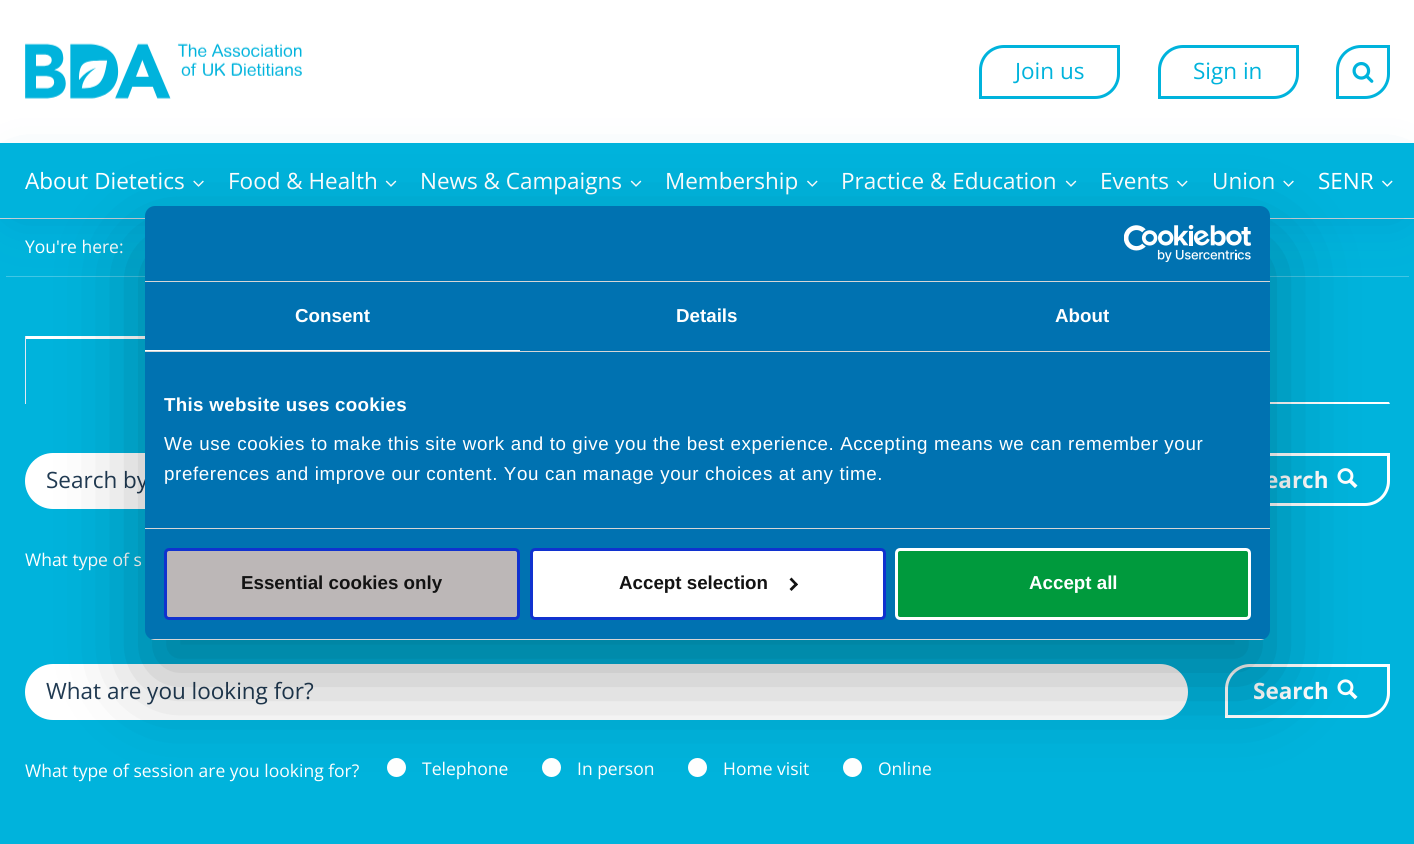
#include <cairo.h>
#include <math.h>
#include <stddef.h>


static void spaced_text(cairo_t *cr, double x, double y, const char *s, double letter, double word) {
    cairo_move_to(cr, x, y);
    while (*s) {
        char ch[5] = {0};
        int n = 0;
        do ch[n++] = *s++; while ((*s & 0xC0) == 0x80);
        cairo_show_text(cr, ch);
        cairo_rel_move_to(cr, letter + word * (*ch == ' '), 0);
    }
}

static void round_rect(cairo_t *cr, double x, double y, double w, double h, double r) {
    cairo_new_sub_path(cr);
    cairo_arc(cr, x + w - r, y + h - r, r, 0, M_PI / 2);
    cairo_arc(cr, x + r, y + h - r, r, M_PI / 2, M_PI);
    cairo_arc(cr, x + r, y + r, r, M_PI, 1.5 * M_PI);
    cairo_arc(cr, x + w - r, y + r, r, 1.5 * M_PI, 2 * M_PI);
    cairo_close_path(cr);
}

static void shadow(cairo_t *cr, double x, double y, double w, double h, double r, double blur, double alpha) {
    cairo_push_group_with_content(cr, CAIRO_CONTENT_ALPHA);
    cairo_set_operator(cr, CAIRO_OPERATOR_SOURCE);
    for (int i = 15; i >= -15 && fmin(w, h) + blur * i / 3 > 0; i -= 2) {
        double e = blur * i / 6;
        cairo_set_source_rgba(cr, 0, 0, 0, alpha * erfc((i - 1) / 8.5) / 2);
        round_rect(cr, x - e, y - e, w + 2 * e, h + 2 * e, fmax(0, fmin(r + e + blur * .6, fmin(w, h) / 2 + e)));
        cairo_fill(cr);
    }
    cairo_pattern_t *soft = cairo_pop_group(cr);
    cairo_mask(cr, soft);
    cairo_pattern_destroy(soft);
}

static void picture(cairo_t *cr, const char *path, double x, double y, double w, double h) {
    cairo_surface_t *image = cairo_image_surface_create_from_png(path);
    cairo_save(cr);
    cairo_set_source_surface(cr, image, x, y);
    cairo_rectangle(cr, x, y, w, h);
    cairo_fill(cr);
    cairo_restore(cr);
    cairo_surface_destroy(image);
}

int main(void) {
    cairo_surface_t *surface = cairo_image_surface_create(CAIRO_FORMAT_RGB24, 1414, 844);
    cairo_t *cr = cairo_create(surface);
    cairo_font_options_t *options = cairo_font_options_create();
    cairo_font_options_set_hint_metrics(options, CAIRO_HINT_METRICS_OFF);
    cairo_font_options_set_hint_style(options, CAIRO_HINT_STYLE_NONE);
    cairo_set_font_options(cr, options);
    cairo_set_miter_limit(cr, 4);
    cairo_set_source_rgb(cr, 1, 1, 1);
    cairo_paint(cr);
    cairo_set_source_rgb(cr, 0.851, 0.851, 0.851);
    cairo_rectangle(cr, 0, 218, 1414, 1);
    cairo_fill(cr);
    picture(cr, "img1.png", 25, 43, 277, 56);
    cairo_new_path(cr);
    cairo_move_to(cr, 1004, 46.5);
    cairo_line_to(cr, 1118.5, 46.5);
    cairo_line_to(cr, 1118.5, 74);
    cairo_curve_to(cr, 1118.5, 87, 1108, 97.5, 1095, 97.5);
    cairo_line_to(cr, 980.5, 97.5);
    cairo_line_to(cr, 980.5, 70);
    cairo_curve_to(cr, 980.5, 57, 991, 46.5, 1004, 46.5);
    cairo_close_path(cr);
    cairo_set_source_rgb(cr, 0, 0.702, 0.863);
    cairo_set_line_width(cr, 3);
    cairo_stroke(cr);
    cairo_select_font_face(cr, "Open Sans", CAIRO_FONT_SLANT_NORMAL, CAIRO_FONT_WEIGHT_NORMAL);
    cairo_set_font_size(cr, 22.5);
    cairo_move_to(cr, 1015, 79);
    cairo_show_text(cr, "Join us");
    cairo_new_path(cr);
    cairo_move_to(cr, 1183, 46.5);
    cairo_line_to(cr, 1297.5, 46.5);
    cairo_line_to(cr, 1297.5, 74);
    cairo_curve_to(cr, 1297.5, 87, 1287, 97.5, 1274, 97.5);
    cairo_line_to(cr, 1159.5, 97.5);
    cairo_line_to(cr, 1159.5, 70);
    cairo_curve_to(cr, 1159.5, 57, 1170, 46.5, 1183, 46.5);
    cairo_close_path(cr);
    cairo_stroke(cr);
    cairo_move_to(cr, 1193, 79);
    cairo_show_text(cr, "Sign in");
    cairo_new_path(cr);
    cairo_move_to(cr, 1361, 46.5);
    cairo_line_to(cr, 1388.5, 46.5);
    cairo_line_to(cr, 1388.5, 74);
    cairo_curve_to(cr, 1388.5, 87, 1378, 97.5, 1365, 97.5);
    cairo_line_to(cr, 1337.5, 97.5);
    cairo_line_to(cr, 1337.5, 70);
    cairo_curve_to(cr, 1337.5, 57, 1348, 46.5, 1361, 46.5);
    cairo_close_path(cr);
    cairo_stroke(cr);
    picture(cr, "img2.png", 1352, 62, 22, 21);
    cairo_rectangle(cr, 0, 219, 1414, 625);
    cairo_fill(cr);
    cairo_set_source_rgb(cr, 0.251, 0.776, 0.898);
    cairo_rectangle(cr, 6, 276, 1403, 1);
    cairo_fill(cr);
    cairo_set_source_rgb(cr, 0, 0.447, 0.694);
    shadow(cr, 19, 180, 1377, 25, 0, 25, 0.5);
    cairo_set_source_rgb(cr, 0, 0.702, 0.863);
    cairo_rectangle(cr, 0, 143, 1414, 75);
    cairo_fill(cr);
    cairo_set_source_rgb(cr, 1, 1, 1);
    cairo_move_to(cr, 25, 189);
    cairo_show_text(cr, "About Dietetics");
    picture(cr, "img3.png", 193, 180, 11, 7);
    cairo_move_to(cr, 228, 189);
    cairo_show_text(cr, "Food & Health");
    picture(cr, "img4.png", 385, 180, 12, 7);
    cairo_move_to(cr, 420, 189);
    cairo_show_text(cr, "News & Campaigns");
    picture(cr, "img4.png", 630, 180, 12, 7);
    cairo_move_to(cr, 665, 189);
    cairo_show_text(cr, "Membership");
    picture(cr, "img5.png", 807, 180, 11, 7);
    cairo_move_to(cr, 841, 189);
    cairo_show_text(cr, "Practice & Education");
    picture(cr, "img4.png", 1065, 180, 12, 7);
    cairo_move_to(cr, 1100, 189);
    cairo_show_text(cr, "Events");
    picture(cr, "img5.png", 1177, 180, 11, 7);
    cairo_move_to(cr, 1212, 189);
    cairo_show_text(cr, "Union");
    picture(cr, "img3.png", 1283, 180, 11, 7);
    cairo_move_to(cr, 1318, 189);
    cairo_show_text(cr, "SENR");
    picture(cr, "img5.png", 1382, 180, 11, 7);
    cairo_set_font_size(cr, 17.5);
    cairo_move_to(cr, 25, 253);
    cairo_show_text(cr, "You're here:");
    cairo_set_source_rgb(cr, 0.882, 0.91, 0.957);
    cairo_rectangle(cr, 25, 336, 1, 68);
    cairo_fill(cr);
    cairo_set_source_rgb(cr, 1, 1, 1);
    cairo_rectangle(cr, 26, 336, 119, 3);
    cairo_fill(cr);
    cairo_new_path(cr);
    cairo_move_to(cr, 1390, 404);
    cairo_line_to(cr, 708, 404);
    cairo_line_to(cr, 709, 402);
    cairo_line_to(cr, 1389, 402);
    cairo_close_path(cr);
    cairo_fill(cr);
    round_rect(cr, 25, 453, 879, 56, 28);
    cairo_fill(cr);
    cairo_set_font_size(cr, 22.5);
    cairo_set_source_rgb(cr, 0.125, 0.227, 0.322);
    cairo_move_to(cr, 46, 488);
    cairo_show_text(cr, "Search by");
    cairo_new_path(cr);
    cairo_move_to(cr, 1250, 454.5);
    cairo_line_to(cr, 1388.5, 454.5);
    cairo_line_to(cr, 1388.5, 481);
    cairo_curve_to(cr, 1388.5, 494, 1378, 504.5, 1365, 504.5);
    cairo_line_to(cr, 1226.5, 504.5);
    cairo_line_to(cr, 1226.5, 478);
    cairo_curve_to(cr, 1226.5, 465, 1237, 454.5, 1250, 454.5);
    cairo_close_path(cr);
    cairo_set_source_rgb(cr, 1, 1, 1);
    cairo_stroke(cr);
    cairo_select_font_face(cr, "Open Sans", CAIRO_FONT_SLANT_NORMAL, CAIRO_FONT_WEIGHT_BOLD);
    cairo_move_to(cr, 1265, 488);
    cairo_show_text(cr, "earch");
    picture(cr, "img6.png", 1337, 468, 21, 20);
    cairo_select_font_face(cr, "Open Sans", CAIRO_FONT_SLANT_NORMAL, CAIRO_FONT_WEIGHT_NORMAL);
    cairo_set_font_size(cr, 17.5);
    cairo_move_to(cr, 25, 566);
    cairo_show_text(cr, "What type of s");
    round_rect(cr, 25, 664, 1163, 56, 28);
    cairo_fill(cr);
    cairo_set_font_size(cr, 22.5);
    cairo_set_source_rgb(cr, 0.125, 0.227, 0.322);
    cairo_move_to(cr, 46, 699);
    cairo_show_text(cr, "What are you looking for?");
    cairo_new_path(cr);
    cairo_move_to(cr, 1250, 665.5);
    cairo_line_to(cr, 1388.5, 665.5);
    cairo_line_to(cr, 1388.5, 693);
    cairo_curve_to(cr, 1388.5, 706, 1378, 716.5, 1365, 716.5);
    cairo_line_to(cr, 1226.5, 716.5);
    cairo_line_to(cr, 1226.5, 689);
    cairo_curve_to(cr, 1226.5, 676, 1237, 665.5, 1250, 665.5);
    cairo_close_path(cr);
    cairo_set_source_rgb(cr, 1, 1, 1);
    cairo_stroke(cr);
    cairo_select_font_face(cr, "Open Sans", CAIRO_FONT_SLANT_NORMAL, CAIRO_FONT_WEIGHT_BOLD);
    cairo_move_to(cr, 1253, 699);
    cairo_show_text(cr, "Search");
    picture(cr, "img7.png", 1337, 679, 21, 21);
    cairo_select_font_face(cr, "Open Sans", CAIRO_FONT_SLANT_NORMAL, CAIRO_FONT_WEIGHT_NORMAL);
    cairo_set_font_size(cr, 17.5);
    cairo_move_to(cr, 25, 777);
    cairo_show_text(cr, "What type of session are you looking for?");
    cairo_new_path(cr);
    cairo_arc(cr, 396.5, 767.5, 11, 0, 2 * M_PI);
    cairo_fill_preserve(cr);
    cairo_set_source_rgb(cr, 0, 0.702, 0.863);
    cairo_stroke(cr);
    cairo_set_source_rgb(cr, 1, 1, 1);
    cairo_move_to(cr, 422, 775);
    cairo_show_text(cr, "Telephone");
    cairo_new_path(cr);
    cairo_arc(cr, 551.5, 767.5, 11, 0, 2 * M_PI);
    cairo_fill_preserve(cr);
    cairo_set_source_rgb(cr, 0, 0.702, 0.863);
    cairo_stroke(cr);
    cairo_set_source_rgb(cr, 1, 1, 1);
    cairo_move_to(cr, 577, 775);
    cairo_show_text(cr, "In person");
    cairo_new_path(cr);
    cairo_arc(cr, 697.5, 767.5, 11, 0, 2 * M_PI);
    cairo_fill_preserve(cr);
    cairo_set_source_rgb(cr, 0, 0.702, 0.863);
    cairo_stroke(cr);
    cairo_set_source_rgb(cr, 1, 1, 1);
    cairo_move_to(cr, 723, 775);
    cairo_show_text(cr, "Home visit");
    cairo_new_path(cr);
    cairo_arc(cr, 852.5, 767.5, 11, 0, 2 * M_PI);
    cairo_fill_preserve(cr);
    cairo_set_source_rgb(cr, 0, 0.702, 0.863);
    cairo_stroke(cr);
    cairo_set_source_rgb(cr, 1, 1, 1);
    cairo_move_to(cr, 878, 775);
    cairo_show_text(cr, "Online");
    cairo_set_source_rgb(cr, 0, 0, 0);
    shadow(cr, 145, 246, 1125, 434, 10, 42.5, 0.3);
    cairo_set_source_rgb(cr, 0, 0.447, 0.694);
    round_rect(cr, 145, 206, 1125, 434, 10);
    cairo_fill(cr);
    cairo_set_source_rgb(cr, 0.839, 0.839, 0.839);
    cairo_rectangle(cr, 145, 281, 1125, 1);
    cairo_fill(cr);
    picture(cr, "img8.png", 1124, 225, 127, 38);
    cairo_rectangle(cr, 145, 351, 1125, 1);
    cairo_fill(cr);
    cairo_set_source_rgb(cr, 1, 1, 1);
    cairo_rectangle(cr, 145, 350, 375, 1);
    cairo_fill(cr);
    cairo_select_font_face(cr, "Liberation Sans", CAIRO_FONT_SLANT_NORMAL, CAIRO_FONT_WEIGHT_BOLD);
    cairo_set_font_size(cr, 18.75);
    cairo_move_to(cr, 295, 322);
    cairo_show_text(cr, "Consent");
    cairo_move_to(cr, 676, 322);
    cairo_show_text(cr, "Details");
    cairo_move_to(cr, 1055, 322);
    cairo_show_text(cr, "About");
    cairo_set_source_rgb(cr, 0.839, 0.839, 0.839);
    cairo_rectangle(cr, 145, 528, 1125, 1);
    cairo_fill(cr);
    cairo_set_source_rgb(cr, 1, 1, 1);
    spaced_text(cr, 164, 411, "This website uses cookies", 0.3, 0);
    cairo_select_font_face(cr, "Liberation Sans", CAIRO_FONT_SLANT_NORMAL, CAIRO_FONT_WEIGHT_NORMAL);
    spaced_text(cr, 164, 450, "We use cookies to make this site work and to give you the best experience. Accepting means we can remember your", 0.62, 0);
    spaced_text(cr, 164, 480, "preferences and improve our content. You can manage your choices at any time.", 0.62, 0);
    cairo_save(cr);
    round_rect(cr, 145, 206, 1125, 434, 10);
    cairo_clip(cr);
    cairo_set_source_rgb(cr, 0.839, 0.839, 0.839);
    cairo_rectangle(cr, 145, 639, 1125, 1);
    cairo_fill(cr);
    cairo_restore(cr);
    cairo_set_source_rgb(cr, 0.737, 0.718, 0.718);
    round_rect(cr, 165.5, 549.5, 353, 69, 3.5);
    cairo_fill_preserve(cr);
    cairo_set_source_rgb(cr, 0.063, 0.196, 0.812);
    cairo_stroke(cr);
    cairo_select_font_face(cr, "Liberation Sans", CAIRO_FONT_SLANT_NORMAL, CAIRO_FONT_WEIGHT_BOLD);
    cairo_set_source_rgb(cr, 0.078, 0.078, 0.078);
    cairo_move_to(cr, 241, 589);
    cairo_show_text(cr, "Essential cookies only");
    cairo_set_source_rgb(cr, 1, 1, 1);
    round_rect(cr, 531.5, 549.5, 353, 69, 3.5);
    cairo_fill_preserve(cr);
    cairo_set_source_rgb(cr, 0.063, 0.196, 0.812);
    cairo_stroke(cr);
    cairo_set_source_rgb(cr, 0.078, 0.078, 0.078);
    cairo_move_to(cr, 619, 589);
    cairo_show_text(cr, "Accept selection");
    cairo_new_path(cr);
    cairo_move_to(cr, 791.5, 577.5);
    cairo_line_to(cr, 798, 584.5);
    cairo_line_to(cr, 796, 586);
    cairo_line_to(cr, 789.5, 579.5);
    cairo_close_path(cr);
    cairo_fill(cr);
    cairo_new_path(cr);
    cairo_move_to(cr, 796, 582.5);
    cairo_line_to(cr, 798, 584.5);
    cairo_line_to(cr, 791.5, 591);
    cairo_line_to(cr, 789.5, 589);
    cairo_close_path(cr);
    cairo_fill(cr);
    cairo_set_source_rgb(cr, 0, 0.604, 0.239);
    round_rect(cr, 896.5, 549.5, 353, 69, 3.5);
    cairo_fill_preserve(cr);
    cairo_set_source_rgb(cr, 1, 1, 1);
    cairo_stroke(cr);
    cairo_move_to(cr, 1029, 589);
    cairo_show_text(cr, "Accept all");
    cairo_surface_write_to_png(surface, "page.png");
    cairo_font_options_destroy(options);
    cairo_destroy(cr);
    cairo_surface_destroy(surface);
    return 0;
}
